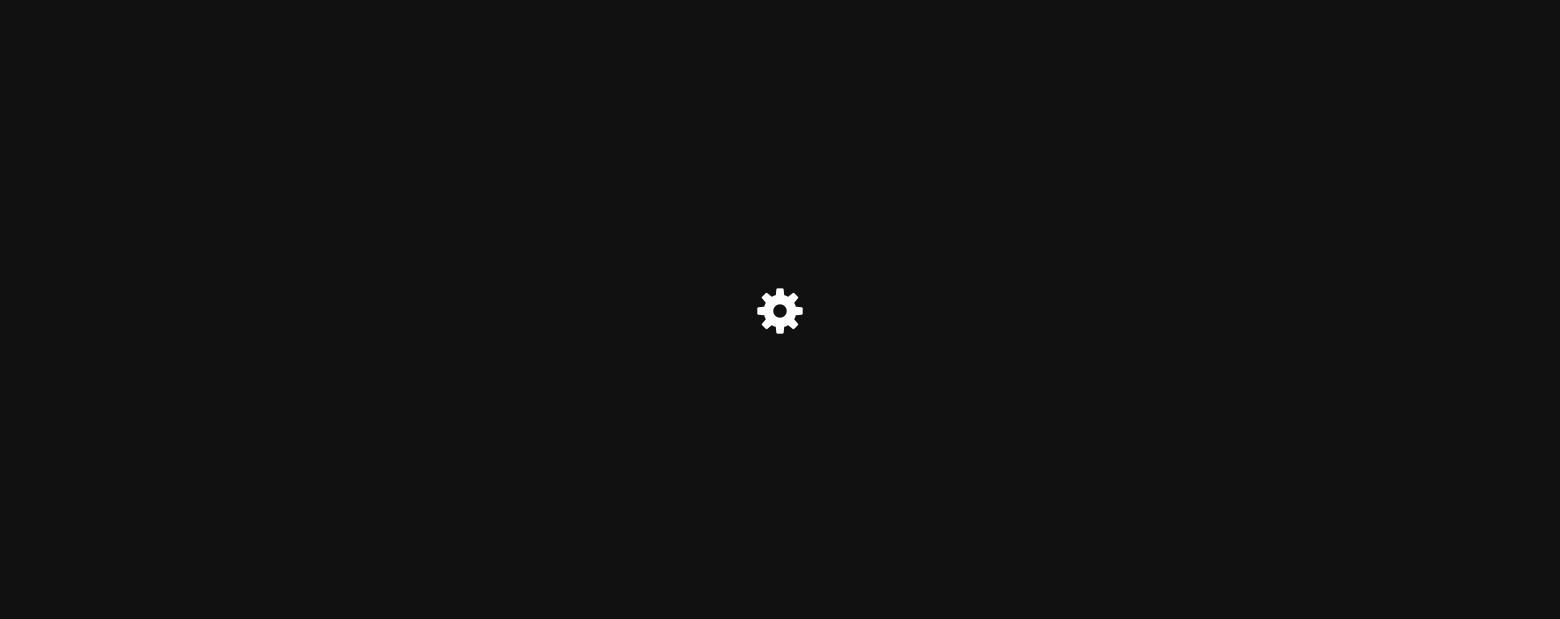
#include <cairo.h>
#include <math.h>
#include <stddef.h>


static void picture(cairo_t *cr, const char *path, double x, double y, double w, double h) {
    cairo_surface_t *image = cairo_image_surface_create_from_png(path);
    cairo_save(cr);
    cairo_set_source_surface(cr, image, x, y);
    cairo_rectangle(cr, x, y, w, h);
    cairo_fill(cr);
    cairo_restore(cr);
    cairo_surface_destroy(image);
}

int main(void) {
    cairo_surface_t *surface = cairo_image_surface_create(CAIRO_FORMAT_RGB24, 1560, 619);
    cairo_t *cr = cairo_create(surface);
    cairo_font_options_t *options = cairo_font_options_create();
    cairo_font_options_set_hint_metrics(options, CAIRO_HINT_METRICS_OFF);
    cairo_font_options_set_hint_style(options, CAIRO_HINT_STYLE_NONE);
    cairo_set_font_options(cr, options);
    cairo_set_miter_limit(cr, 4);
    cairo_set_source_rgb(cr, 0.067, 0.067, 0.067);
    cairo_paint(cr);
    picture(cr, "img1.png", 757, 288, 46, 46);
    cairo_surface_write_to_png(surface, "page.png");
    cairo_font_options_destroy(options);
    cairo_destroy(cr);
    cairo_surface_destroy(surface);
    return 0;
}
